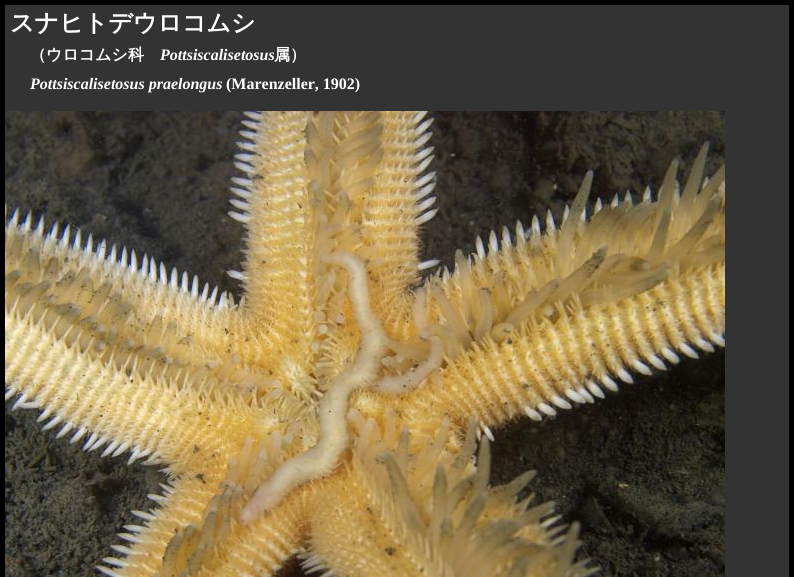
#include <cairo.h>
#include <math.h>
#include <stddef.h>


static void picture(cairo_t *cr, const char *path, double x, double y, double w, double h) {
    cairo_surface_t *image = cairo_image_surface_create_from_png(path);
    cairo_save(cr);
    cairo_set_source_surface(cr, image, x, y);
    cairo_rectangle(cr, x, y, w, h);
    cairo_fill(cr);
    cairo_restore(cr);
    cairo_surface_destroy(image);
}

int main(void) {
    cairo_surface_t *surface = cairo_image_surface_create(CAIRO_FORMAT_RGB24, 794, 577);
    cairo_t *cr = cairo_create(surface);
    cairo_font_options_t *options = cairo_font_options_create();
    cairo_font_options_set_hint_metrics(options, CAIRO_HINT_METRICS_OFF);
    cairo_font_options_set_hint_style(options, CAIRO_HINT_STYLE_NONE);
    cairo_set_font_options(cr, options);
    cairo_set_miter_limit(cr, 4);
    cairo_set_source_rgb(cr, 0, 0, 0);
    cairo_paint(cr);
    cairo_set_source_rgb(cr, 0.2, 0.2, 0.2);
    cairo_rectangle(cr, 5, 5, 784, 572);
    cairo_fill(cr);
    cairo_select_font_face(cr, "WenQuanYi Zen Hei", CAIRO_FONT_SLANT_NORMAL, CAIRO_FONT_WEIGHT_BOLD);
    cairo_set_font_size(cr, 24);
    cairo_set_source_rgb(cr, 1, 1, 1);
    cairo_move_to(cr, 10, 31);
    cairo_show_text(cr, "スナヒトデウロコムシ");
    cairo_set_font_size(cr, 16);
    cairo_move_to(cr, 30, 60);
    cairo_show_text(cr, "（ウロコムシ科");
    cairo_select_font_face(cr, "Liberation Serif", CAIRO_FONT_SLANT_ITALIC, CAIRO_FONT_WEIGHT_BOLD);
    cairo_move_to(cr, 160, 60);
    cairo_show_text(cr, "Pottsiscalisetosus");
    cairo_select_font_face(cr, "WenQuanYi Zen Hei", CAIRO_FONT_SLANT_NORMAL, CAIRO_FONT_WEIGHT_BOLD);
    cairo_move_to(cr, 274, 60);
    cairo_show_text(cr, "属）");
    cairo_select_font_face(cr, "Liberation Serif", CAIRO_FONT_SLANT_ITALIC, CAIRO_FONT_WEIGHT_BOLD);
    cairo_move_to(cr, 30, 89);
    cairo_show_text(cr, "Pottsiscalisetosus praelongus");
    cairo_select_font_face(cr, "Liberation Serif", CAIRO_FONT_SLANT_NORMAL, CAIRO_FONT_WEIGHT_BOLD);
    cairo_move_to(cr, 226, 89);
    cairo_show_text(cr, "(Marenzeller, 1902)");
    picture(cr, "img1.png", 5, 111, 720, 466);
    cairo_surface_write_to_png(surface, "page.png");
    cairo_font_options_destroy(options);
    cairo_destroy(cr);
    cairo_surface_destroy(surface);
    return 0;
}
